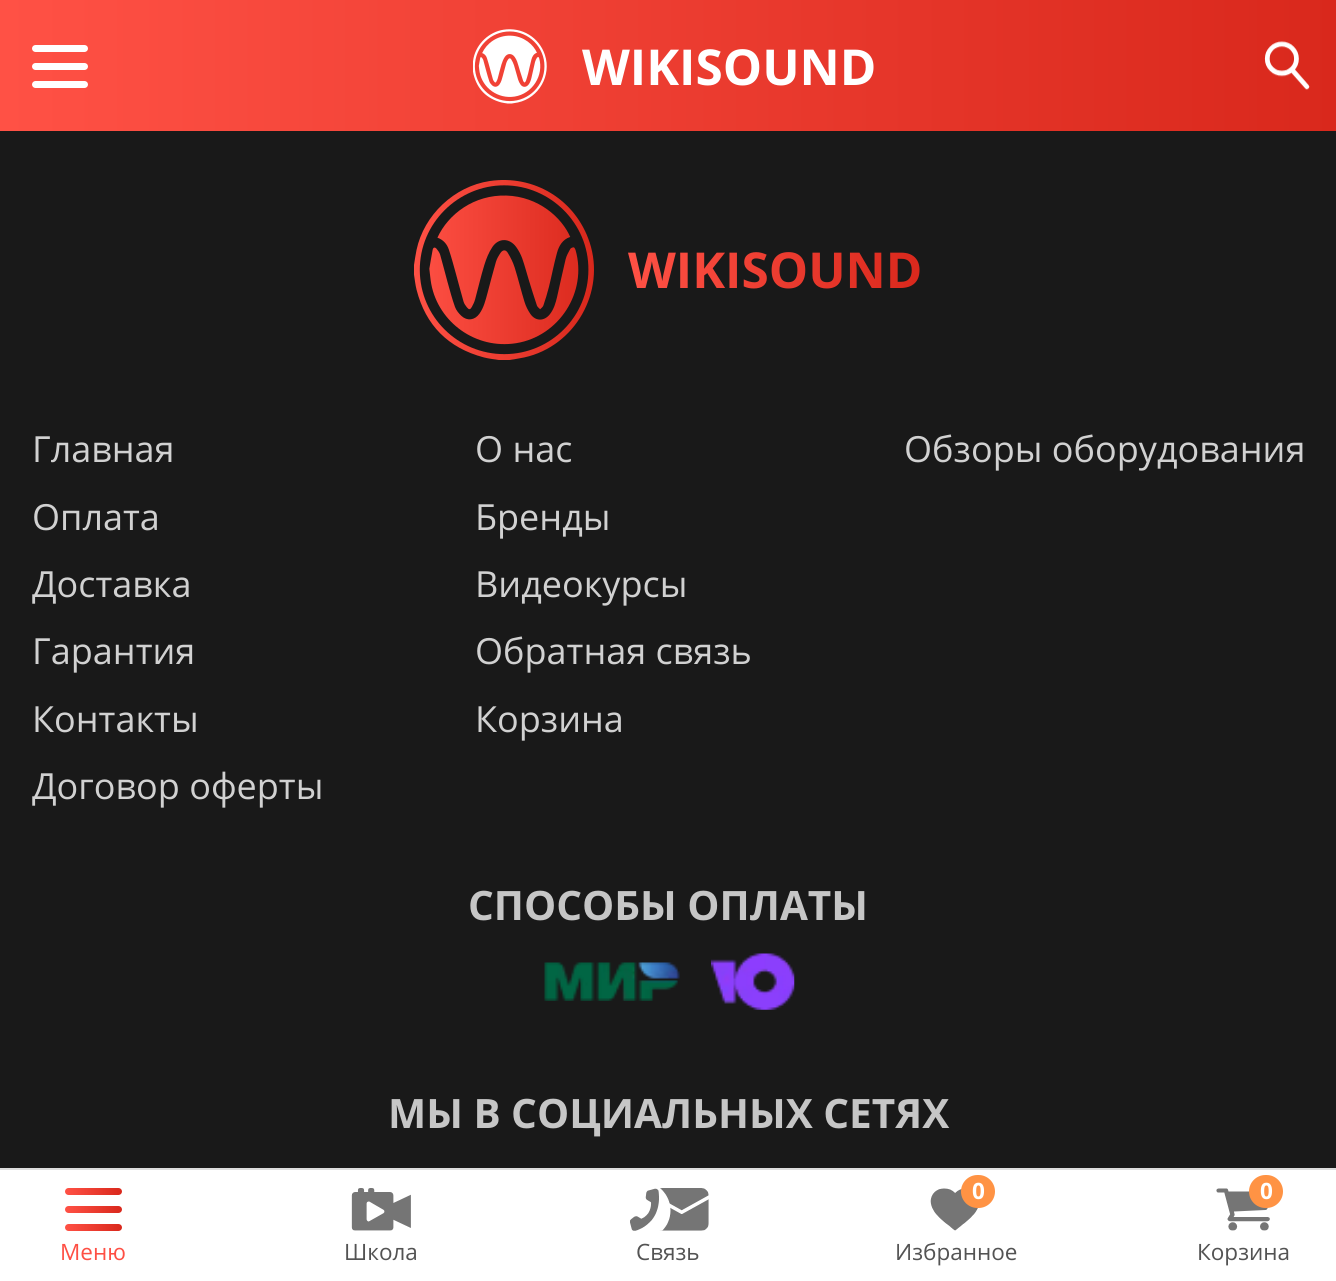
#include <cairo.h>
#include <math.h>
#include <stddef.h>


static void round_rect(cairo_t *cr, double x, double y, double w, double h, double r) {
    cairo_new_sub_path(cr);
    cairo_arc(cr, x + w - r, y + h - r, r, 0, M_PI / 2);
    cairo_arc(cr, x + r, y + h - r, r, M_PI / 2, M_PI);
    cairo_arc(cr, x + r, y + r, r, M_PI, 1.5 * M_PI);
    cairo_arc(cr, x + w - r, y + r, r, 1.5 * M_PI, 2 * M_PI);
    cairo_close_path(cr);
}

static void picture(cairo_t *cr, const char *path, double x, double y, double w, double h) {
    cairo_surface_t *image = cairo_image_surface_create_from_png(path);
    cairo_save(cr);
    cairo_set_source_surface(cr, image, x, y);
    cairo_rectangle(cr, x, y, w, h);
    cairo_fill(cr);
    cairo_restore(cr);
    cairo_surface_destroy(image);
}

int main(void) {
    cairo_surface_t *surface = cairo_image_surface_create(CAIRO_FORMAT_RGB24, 1336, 1281);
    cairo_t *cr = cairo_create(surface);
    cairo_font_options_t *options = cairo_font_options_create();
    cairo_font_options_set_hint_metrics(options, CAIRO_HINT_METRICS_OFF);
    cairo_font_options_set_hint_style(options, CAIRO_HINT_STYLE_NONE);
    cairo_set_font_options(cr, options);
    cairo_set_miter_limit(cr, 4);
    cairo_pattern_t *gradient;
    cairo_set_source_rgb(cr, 0.098, 0.098, 0.098);
    cairo_paint(cr);
    gradient = cairo_pattern_create_linear(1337, 65, 0, 65);
    cairo_pattern_add_color_stop_rgba(gradient, 0, 0.851, 0.157, 0.11, 1);
    cairo_pattern_add_color_stop_rgba(gradient, 1, 1, 0.318, 0.271, 1);
    cairo_set_source(cr, gradient);
    cairo_pattern_destroy(gradient);
    cairo_rectangle(cr, 0, 0, 1336, 131);
    cairo_fill(cr);
    cairo_set_source_rgb(cr, 1, 1, 1);
    round_rect(cr, 32, 45, 56, 7, 3.5);
    cairo_fill(cr);
    round_rect(cr, 32, 63, 56, 7, 3.5);
    cairo_fill(cr);
    round_rect(cr, 32, 81, 56, 7, 3.5);
    cairo_fill(cr);
    picture(cr, "img1.png", 473, 29, 74, 75);
    cairo_select_font_face(cr, "Open Sans", CAIRO_FONT_SLANT_NORMAL, CAIRO_FONT_WEIGHT_BOLD);
    cairo_set_font_size(cr, 49.5);
    cairo_move_to(cr, 582, 85);
    cairo_show_text(cr, "WIKISOUND");
    picture(cr, "img2.png", 1264, 41, 46, 49);
    picture(cr, "img3.png", 414, 180, 180, 180);
    gradient = cairo_pattern_create_linear(922, 269, 628, 269);
    cairo_pattern_add_color_stop_rgba(gradient, 0, 0.851, 0.157, 0.11, 1);
    cairo_pattern_add_color_stop_rgba(gradient, 1, 1, 0.318, 0.271, 1);
    cairo_set_source(cr, gradient);
    cairo_pattern_destroy(gradient);
    cairo_move_to(cr, 628, 288);
    cairo_show_text(cr, "WIKISOUND");
    cairo_select_font_face(cr, "Open Sans", CAIRO_FONT_SLANT_NORMAL, CAIRO_FONT_WEIGHT_NORMAL);
    cairo_set_font_size(cr, 36);
    cairo_set_source_rgb(cr, 0.82, 0.82, 0.82);
    cairo_move_to(cr, 32, 462);
    cairo_show_text(cr, "Главная");
    cairo_move_to(cr, 32, 530);
    cairo_show_text(cr, "Оплата");
    cairo_move_to(cr, 32, 597);
    cairo_show_text(cr, "Доставка");
    cairo_move_to(cr, 32, 664);
    cairo_show_text(cr, "Гарантия");
    cairo_move_to(cr, 32, 732);
    cairo_show_text(cr, "Контакты");
    cairo_move_to(cr, 32, 799);
    cairo_show_text(cr, "Договор оферты");
    cairo_move_to(cr, 475, 462);
    cairo_show_text(cr, "О нас");
    cairo_move_to(cr, 475, 530);
    cairo_show_text(cr, "Бренды");
    cairo_move_to(cr, 475, 597);
    cairo_show_text(cr, "Видеокурсы");
    cairo_move_to(cr, 475, 664);
    cairo_show_text(cr, "Обратная связь");
    cairo_move_to(cr, 475, 732);
    cairo_show_text(cr, "Корзина");
    cairo_move_to(cr, 904, 462);
    cairo_show_text(cr, "Обзоры оборудования");
    cairo_select_font_face(cr, "Open Sans", CAIRO_FONT_SLANT_NORMAL, CAIRO_FONT_WEIGHT_BOLD);
    cairo_set_font_size(cr, 40.5);
    cairo_set_source_rgb(cr, 0.776, 0.776, 0.776);
    cairo_move_to(cr, 468, 920);
    cairo_show_text(cr, "СПОСОБЫ ОПЛАТЫ");
    picture(cr, "img4.png", 544, 962, 136, 39);
    picture(cr, "img5.png", 711, 953, 84, 57);
    cairo_move_to(cr, 388, 1128);
    cairo_show_text(cr, "МЫ В СОЦИАЛЬНЫХ СЕТЯХ");
    cairo_set_source_rgb(cr, 1, 1, 1);
    cairo_rectangle(cr, 0, 1170, 1336, 111);
    cairo_fill(cr);
    cairo_set_source_rgb(cr, 0.867, 0.867, 0.867);
    cairo_rectangle(cr, 0, 1168, 1336, 2);
    cairo_fill(cr);
    gradient = cairo_pattern_create_linear(122, 1191, 65, 1191);
    cairo_pattern_add_color_stop_rgba(gradient, 0, 0.851, 0.157, 0.11, 1);
    cairo_pattern_add_color_stop_rgba(gradient, 1, 1, 0.318, 0.271, 1);
    cairo_set_source(cr, gradient);
    cairo_pattern_destroy(gradient);
    round_rect(cr, 65, 1188, 57, 7, 3.5);
    cairo_fill(cr);
    gradient = cairo_pattern_create_linear(122, 1209, 65, 1209);
    cairo_pattern_add_color_stop_rgba(gradient, 0, 0.851, 0.157, 0.11, 1);
    cairo_pattern_add_color_stop_rgba(gradient, 1, 1, 0.318, 0.271, 1);
    cairo_set_source(cr, gradient);
    cairo_pattern_destroy(gradient);
    round_rect(cr, 65, 1206, 57, 7, 3.5);
    cairo_fill(cr);
    gradient = cairo_pattern_create_linear(122, 1227, 65, 1227);
    cairo_pattern_add_color_stop_rgba(gradient, 0, 0.851, 0.157, 0.11, 1);
    cairo_pattern_add_color_stop_rgba(gradient, 1, 1, 0.318, 0.271, 1);
    cairo_set_source(cr, gradient);
    cairo_pattern_destroy(gradient);
    round_rect(cr, 65, 1224, 57, 7, 3.5);
    cairo_fill(cr);
    cairo_select_font_face(cr, "Open Sans", CAIRO_FONT_SLANT_NORMAL, CAIRO_FONT_WEIGHT_NORMAL);
    cairo_set_font_size(cr, 22.5);
    cairo_set_source_rgb(cr, 0.996, 0.31, 0.267);
    cairo_move_to(cr, 60, 1260);
    cairo_show_text(cr, "Меню");
    picture(cr, "img6.png", 351, 1188, 60, 43);
    cairo_set_source_rgb(cr, 0.325, 0.325, 0.325);
    cairo_move_to(cr, 344, 1260);
    cairo_show_text(cr, "Школа");
    picture(cr, "img7.png", 630, 1188, 79, 43);
    cairo_move_to(cr, 636, 1260);
    cairo_show_text(cr, "Связь");
    picture(cr, "img8.png", 930, 1188, 48, 43);
    cairo_set_source_rgb(cr, 1, 0.576, 0.267);
    round_rect(cr, 961, 1175, 34, 33, 16.5);
    cairo_fill(cr);
    cairo_select_font_face(cr, "Open Sans", CAIRO_FONT_SLANT_NORMAL, CAIRO_FONT_WEIGHT_BOLD);
    cairo_set_source_rgb(cr, 1, 1, 1);
    cairo_move_to(cr, 972, 1199);
    cairo_show_text(cr, "0");
    cairo_select_font_face(cr, "Open Sans", CAIRO_FONT_SLANT_NORMAL, CAIRO_FONT_WEIGHT_NORMAL);
    cairo_set_source_rgb(cr, 0.325, 0.325, 0.325);
    cairo_move_to(cr, 895, 1260);
    cairo_show_text(cr, "Избранное");
    picture(cr, "img9.png", 1216, 1188, 54, 43);
    cairo_set_source_rgb(cr, 1, 0.576, 0.267);
    round_rect(cr, 1249, 1175, 34, 33, 16.5);
    cairo_fill(cr);
    cairo_select_font_face(cr, "Open Sans", CAIRO_FONT_SLANT_NORMAL, CAIRO_FONT_WEIGHT_BOLD);
    cairo_set_source_rgb(cr, 1, 1, 1);
    cairo_move_to(cr, 1260, 1199);
    cairo_show_text(cr, "0");
    cairo_select_font_face(cr, "Open Sans", CAIRO_FONT_SLANT_NORMAL, CAIRO_FONT_WEIGHT_NORMAL);
    cairo_set_source_rgb(cr, 0.325, 0.325, 0.325);
    cairo_move_to(cr, 1197, 1260);
    cairo_show_text(cr, "Корзина");
    cairo_surface_write_to_png(surface, "page.png");
    cairo_font_options_destroy(options);
    cairo_destroy(cr);
    cairo_surface_destroy(surface);
    return 0;
}
